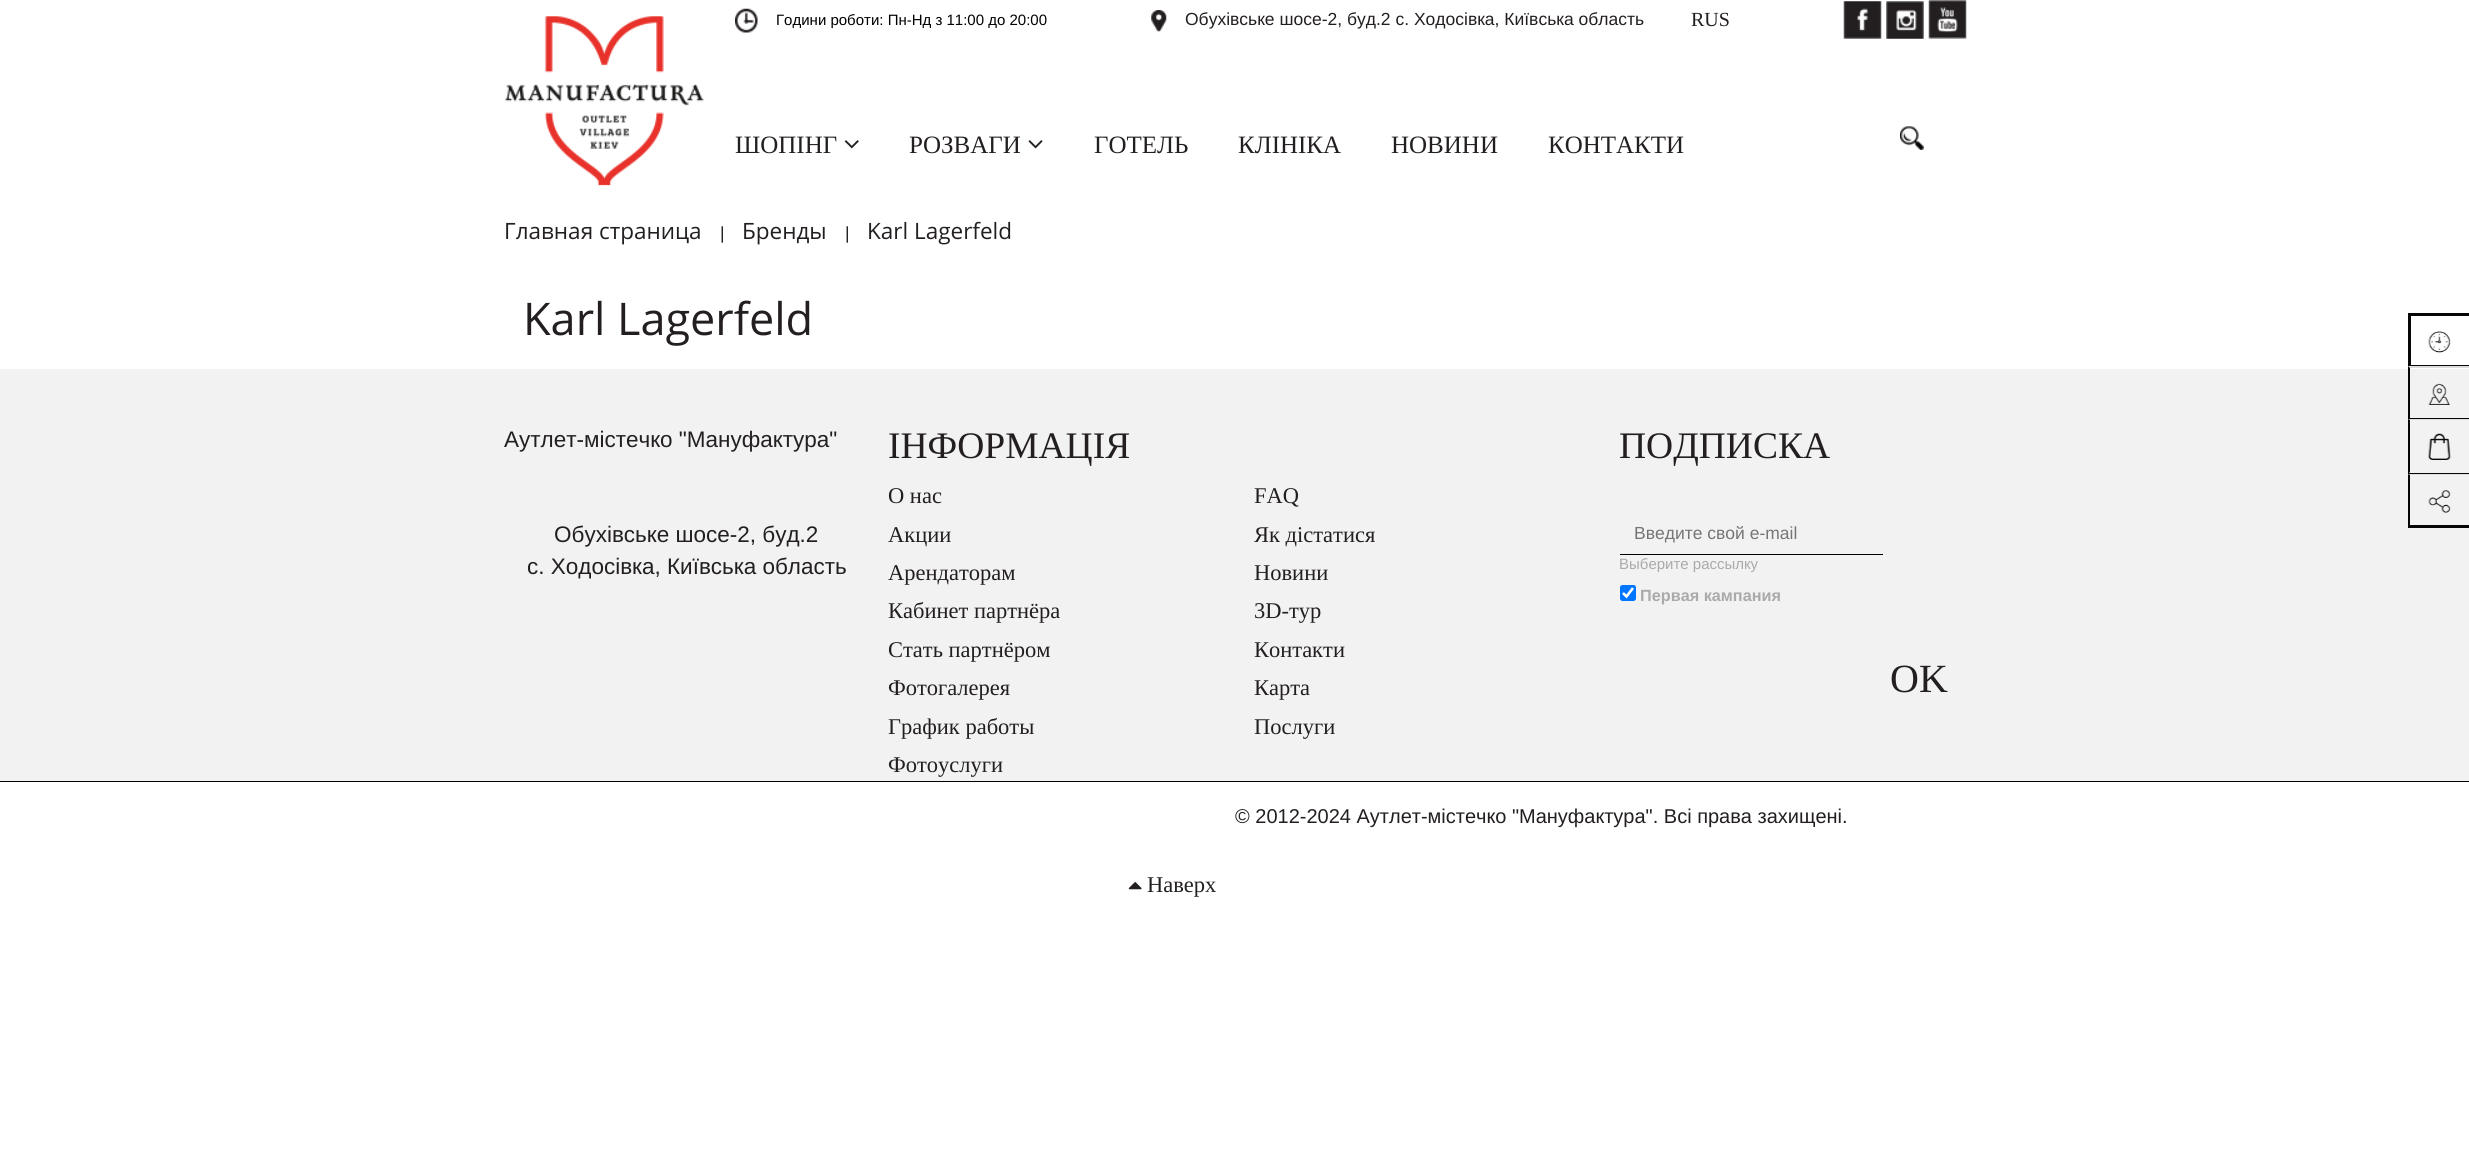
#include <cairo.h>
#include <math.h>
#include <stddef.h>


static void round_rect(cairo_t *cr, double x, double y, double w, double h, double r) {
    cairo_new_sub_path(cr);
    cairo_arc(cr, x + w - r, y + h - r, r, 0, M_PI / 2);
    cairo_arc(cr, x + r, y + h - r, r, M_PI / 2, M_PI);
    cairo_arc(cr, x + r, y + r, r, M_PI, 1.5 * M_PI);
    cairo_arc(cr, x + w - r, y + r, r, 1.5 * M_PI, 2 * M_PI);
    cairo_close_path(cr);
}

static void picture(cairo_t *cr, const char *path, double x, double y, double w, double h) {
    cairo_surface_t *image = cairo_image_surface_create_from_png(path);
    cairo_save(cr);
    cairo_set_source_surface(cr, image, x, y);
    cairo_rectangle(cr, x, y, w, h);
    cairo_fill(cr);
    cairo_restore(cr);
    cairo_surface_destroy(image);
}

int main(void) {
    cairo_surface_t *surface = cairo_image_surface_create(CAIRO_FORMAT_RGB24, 2469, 1155);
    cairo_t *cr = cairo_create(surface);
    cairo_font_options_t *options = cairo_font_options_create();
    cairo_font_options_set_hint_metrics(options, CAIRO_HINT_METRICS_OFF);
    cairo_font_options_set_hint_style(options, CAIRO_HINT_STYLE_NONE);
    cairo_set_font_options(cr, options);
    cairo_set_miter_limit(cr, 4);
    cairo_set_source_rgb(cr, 1, 1, 1);
    cairo_paint(cr);
    picture(cr, "img1.png", 505, 16, 199, 170);
    picture(cr, "img2.png", 735, 8, 23, 25);
    cairo_select_font_face(cr, "Liberation Sans", CAIRO_FONT_SLANT_NORMAL, CAIRO_FONT_WEIGHT_NORMAL);
    cairo_set_font_size(cr, 15);
    cairo_set_source_rgb(cr, 0, 0, 0);
    cairo_move_to(cr, 776, 25);
    cairo_show_text(cr, "Години роботи: Пн-Нд з 11:00 до 20:00");
    picture(cr, "img3.png", 1151, 10, 16, 22);
    cairo_set_font_size(cr, 17.5);
    cairo_set_source_rgb(cr, 0.137, 0.122, 0.125);
    cairo_move_to(cr, 1185, 25);
    cairo_show_text(cr, "Обухівське шосе-2, буд.2 с. Ходосівка, Київська область");
    cairo_select_font_face(cr, "Liberation Serif", CAIRO_FONT_SLANT_NORMAL, CAIRO_FONT_WEIGHT_NORMAL);
    cairo_set_font_size(cr, 20);
    cairo_move_to(cr, 1691, 26);
    cairo_show_text(cr, "RUS");
    picture(cr, "img4.png", 1843, 1, 39, 38);
    picture(cr, "img5.png", 1886, 1, 38, 38);
    picture(cr, "img6.png", 1928, 0, 39, 39);
    cairo_set_font_size(cr, 25);
    cairo_move_to(cr, 735, 153);
    cairo_show_text(cr, "ШОПІНГ");
    picture(cr, "img7.png", 844, 140, 15, 9);
    cairo_move_to(cr, 909, 153);
    cairo_show_text(cr, "РОЗВАГИ");
    picture(cr, "img8.png", 1028, 140, 15, 9);
    cairo_move_to(cr, 1094, 153);
    cairo_show_text(cr, "ГОТЕЛЬ");
    cairo_move_to(cr, 1238, 153);
    cairo_show_text(cr, "КЛІНІКА");
    cairo_move_to(cr, 1391, 153);
    cairo_show_text(cr, "НОВИНИ");
    cairo_move_to(cr, 1548, 153);
    cairo_show_text(cr, "КОНТАКТИ");
    picture(cr, "img9.png", 1900, 126, 24, 24);
    cairo_select_font_face(cr, "Open Sans", CAIRO_FONT_SLANT_NORMAL, CAIRO_FONT_WEIGHT_NORMAL);
    cairo_set_font_size(cr, 22.5);
    cairo_move_to(cr, 504, 239);
    cairo_show_text(cr, "Главная страница");
    cairo_select_font_face(cr, "Liberation Sans", CAIRO_FONT_SLANT_NORMAL, CAIRO_FONT_WEIGHT_NORMAL);
    cairo_set_font_size(cr, 17.5);
    cairo_move_to(cr, 720, 239);
    cairo_show_text(cr, "|");
    cairo_select_font_face(cr, "Open Sans", CAIRO_FONT_SLANT_NORMAL, CAIRO_FONT_WEIGHT_NORMAL);
    cairo_set_font_size(cr, 22.5);
    cairo_move_to(cr, 742, 239);
    cairo_show_text(cr, "Бренды");
    cairo_select_font_face(cr, "Liberation Sans", CAIRO_FONT_SLANT_NORMAL, CAIRO_FONT_WEIGHT_NORMAL);
    cairo_set_font_size(cr, 17.5);
    cairo_move_to(cr, 845, 239);
    cairo_show_text(cr, "|");
    cairo_select_font_face(cr, "Open Sans", CAIRO_FONT_SLANT_NORMAL, CAIRO_FONT_WEIGHT_NORMAL);
    cairo_set_font_size(cr, 22.5);
    cairo_move_to(cr, 867, 239);
    cairo_show_text(cr, "Karl Lagerfeld");
    cairo_set_font_size(cr, 45);
    cairo_move_to(cr, 523, 335);
    cairo_show_text(cr, "Karl Lagerfeld");
    cairo_set_source_rgb(cr, 0.031, 0.031, 0.031);
    cairo_rectangle(cr, 2408, 313, 61, 3);
    cairo_fill(cr);
    cairo_rectangle(cr, 2408, 365, 61, 1);
    cairo_fill(cr);
    cairo_rectangle(cr, 2408, 313, 3, 53);
    cairo_fill(cr);
    picture(cr, "img10.png", 2428, 331, 23, 22);
    cairo_set_source_rgb(cr, 0.871, 0.871, 0.871);
    cairo_new_path(cr);
    cairo_move_to(cr, 2408, 366);
    cairo_line_to(cr, 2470, 366);
    cairo_line_to(cr, 2469, 368);
    cairo_line_to(cr, 2410, 368);
    cairo_close_path(cr);
    cairo_fill(cr);
    cairo_set_source_rgb(cr, 0.949, 0.949, 0.949);
    cairo_rectangle(cr, 0, 369, 2469, 412);
    cairo_fill(cr);
    cairo_set_source_rgb(cr, 0.027, 0.027, 0.027);
    cairo_rectangle(cr, 2408, 418, 61, 1);
    cairo_fill(cr);
    cairo_set_source_rgba(cr, 0, 0, 0, 0.97);
    cairo_new_path(cr);
    cairo_move_to(cr, 2408, 419);
    cairo_line_to(cr, 2408, 366);
    cairo_line_to(cr, 2410, 368);
    cairo_line_to(cr, 2410, 418);
    cairo_close_path(cr);
    cairo_fill(cr);
    picture(cr, "img11.png", 2428, 383, 22, 22);
    cairo_set_source_rgb(cr, 0.871, 0.871, 0.871);
    cairo_new_path(cr);
    cairo_move_to(cr, 2408, 419);
    cairo_line_to(cr, 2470, 419);
    cairo_line_to(cr, 2469, 420);
    cairo_line_to(cr, 2410, 420);
    cairo_close_path(cr);
    cairo_fill(cr);
    cairo_set_source_rgb(cr, 0.027, 0.027, 0.027);
    cairo_rectangle(cr, 2408, 473, 61, 1);
    cairo_fill(cr);
    cairo_new_path(cr);
    cairo_move_to(cr, 2408, 474);
    cairo_line_to(cr, 2408, 419);
    cairo_line_to(cr, 2410, 420);
    cairo_line_to(cr, 2410, 472);
    cairo_close_path(cr);
    cairo_fill(cr);
    picture(cr, "img12.png", 2428, 433, 23, 27);
    cairo_set_source_rgb(cr, 0.871, 0.871, 0.871);
    cairo_new_path(cr);
    cairo_move_to(cr, 2408, 474);
    cairo_line_to(cr, 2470, 474);
    cairo_line_to(cr, 2469, 475);
    cairo_line_to(cr, 2410, 475);
    cairo_close_path(cr);
    cairo_fill(cr);
    cairo_set_source_rgb(cr, 0.027, 0.027, 0.027);
    cairo_rectangle(cr, 2408, 525, 61, 3);
    cairo_fill(cr);
    cairo_new_path(cr);
    cairo_move_to(cr, 2408, 528);
    cairo_line_to(cr, 2408, 474);
    cairo_line_to(cr, 2410, 475);
    cairo_line_to(cr, 2410, 525);
    cairo_close_path(cr);
    cairo_fill(cr);
    picture(cr, "img13.png", 2428, 490, 23, 23);
    cairo_select_font_face(cr, "Liberation Sans", CAIRO_FONT_SLANT_NORMAL, CAIRO_FONT_WEIGHT_NORMAL);
    cairo_set_font_size(cr, 22.5);
    cairo_set_source_rgb(cr, 0.137, 0.122, 0.125);
    cairo_move_to(cr, 504, 447);
    cairo_show_text(cr, "Аутлет-містечко \"Мануфактура\"");
    cairo_move_to(cr, 554, 542);
    cairo_show_text(cr, "Обухівське шосе-2, буд.2");
    cairo_move_to(cr, 527, 574);
    cairo_show_text(cr, "с. Ходосівка, Київська область");
    cairo_select_font_face(cr, "Liberation Serif", CAIRO_FONT_SLANT_NORMAL, CAIRO_FONT_WEIGHT_NORMAL);
    cairo_set_font_size(cr, 37.5);
    cairo_move_to(cr, 888, 458);
    cairo_show_text(cr, "ІНФОРМАЦІЯ");
    cairo_set_font_size(cr, 22.5);
    cairo_move_to(cr, 888, 503);
    cairo_show_text(cr, "О нас");
    cairo_move_to(cr, 888, 542);
    cairo_show_text(cr, "Акции");
    cairo_move_to(cr, 888, 580);
    cairo_show_text(cr, "Арендаторам");
    cairo_move_to(cr, 888, 618);
    cairo_show_text(cr, "Кабинет партнёра");
    cairo_move_to(cr, 888, 657);
    cairo_show_text(cr, "Стать партнёром");
    cairo_move_to(cr, 888, 695);
    cairo_show_text(cr, "Фотогалерея");
    cairo_move_to(cr, 888, 734);
    cairo_show_text(cr, "График работы");
    cairo_move_to(cr, 888, 772);
    cairo_show_text(cr, "Фотоуслуги");
    cairo_move_to(cr, 1254, 503);
    cairo_show_text(cr, "FAQ");
    cairo_move_to(cr, 1254, 542);
    cairo_show_text(cr, "Як дістатися");
    cairo_move_to(cr, 1254, 580);
    cairo_show_text(cr, "Новини");
    cairo_move_to(cr, 1254, 618);
    cairo_show_text(cr, "3D-тур");
    cairo_move_to(cr, 1254, 657);
    cairo_show_text(cr, "Контакти");
    cairo_move_to(cr, 1254, 695);
    cairo_show_text(cr, "Карта");
    cairo_move_to(cr, 1254, 734);
    cairo_show_text(cr, "Послуги");
    cairo_set_font_size(cr, 37.5);
    cairo_move_to(cr, 1619, 458);
    cairo_show_text(cr, "ПОДПИСКА");
    cairo_set_source_rgb(cr, 0, 0, 0);
    cairo_rectangle(cr, 1620, 554, 263, 1);
    cairo_fill(cr);
    cairo_select_font_face(cr, "Liberation Sans", CAIRO_FONT_SLANT_NORMAL, CAIRO_FONT_WEIGHT_NORMAL);
    cairo_set_font_size(cr, 17.5);
    cairo_set_source_rgb(cr, 0.459, 0.459, 0.459);
    cairo_move_to(cr, 1634, 539);
    cairo_show_text(cr, "Введите свой e-mail");
    cairo_set_font_size(cr, 15);
    cairo_set_source_rgb(cr, 0.667, 0.667, 0.667);
    cairo_move_to(cr, 1619, 569);
    cairo_show_text(cr, "Выберите рассылку");
    cairo_set_source_rgb(cr, 0, 0.459, 1);
    round_rect(cr, 1620, 585, 16, 16, 2.5);
    cairo_fill(cr);
    cairo_new_path(cr);
    cairo_move_to(cr, 1623, 593);
    cairo_line_to(cr, 1626.5, 596.5);
    cairo_line_to(cr, 1633, 588);
    cairo_set_source_rgb(cr, 1, 1, 1);
    cairo_set_line_width(cr, 2.6);
    cairo_stroke(cr);
    cairo_select_font_face(cr, "Liberation Sans", CAIRO_FONT_SLANT_NORMAL, CAIRO_FONT_WEIGHT_BOLD);
    cairo_set_font_size(cr, 16.25);
    cairo_set_source_rgb(cr, 0.667, 0.667, 0.667);
    cairo_move_to(cr, 1640, 601);
    cairo_show_text(cr, "Первая кампания");
    cairo_select_font_face(cr, "Liberation Serif", CAIRO_FONT_SLANT_NORMAL, CAIRO_FONT_WEIGHT_NORMAL);
    cairo_set_font_size(cr, 40);
    cairo_set_source_rgb(cr, 0.137, 0.122, 0.125);
    cairo_move_to(cr, 1890, 692);
    cairo_show_text(cr, "OK");
    cairo_set_source_rgb(cr, 0, 0, 0);
    cairo_rectangle(cr, 0, 781, 2469, 1);
    cairo_fill(cr);
    cairo_select_font_face(cr, "Liberation Sans", CAIRO_FONT_SLANT_NORMAL, CAIRO_FONT_WEIGHT_NORMAL);
    cairo_set_font_size(cr, 20);
    cairo_set_source_rgb(cr, 0.137, 0.122, 0.125);
    cairo_move_to(cr, 1235, 823);
    cairo_show_text(cr, "© 2012-2024 Аутлет-містечко \"Мануфактура\". Всі права захищені.");
    picture(cr, "img14.png", 1128, 882, 14, 8);
    cairo_select_font_face(cr, "Liberation Serif", CAIRO_FONT_SLANT_NORMAL, CAIRO_FONT_WEIGHT_NORMAL);
    cairo_set_font_size(cr, 22.5);
    cairo_move_to(cr, 1147, 892);
    cairo_show_text(cr, "Наверх");
    cairo_surface_write_to_png(surface, "page.png");
    cairo_font_options_destroy(options);
    cairo_destroy(cr);
    cairo_surface_destroy(surface);
    return 0;
}
